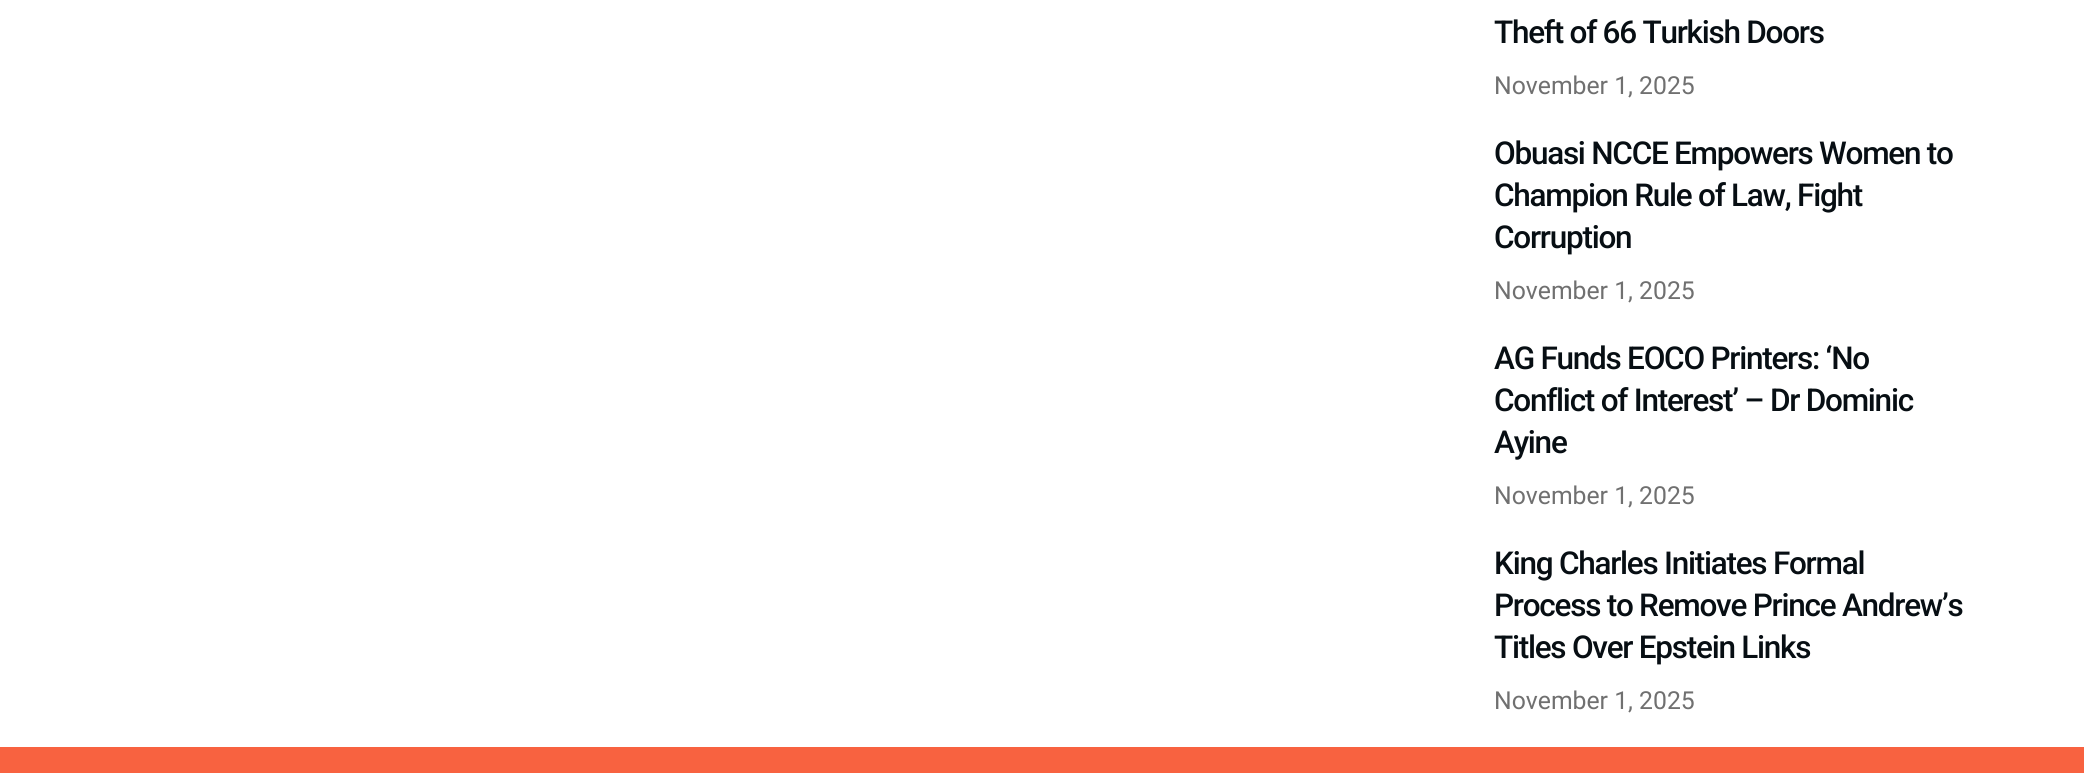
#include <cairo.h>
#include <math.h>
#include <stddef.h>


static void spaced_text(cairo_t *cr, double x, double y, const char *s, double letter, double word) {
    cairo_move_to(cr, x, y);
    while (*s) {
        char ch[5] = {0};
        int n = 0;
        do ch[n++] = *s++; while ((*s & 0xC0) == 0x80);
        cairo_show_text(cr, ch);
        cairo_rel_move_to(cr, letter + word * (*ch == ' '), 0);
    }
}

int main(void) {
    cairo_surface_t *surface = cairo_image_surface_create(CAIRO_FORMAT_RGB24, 2084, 773);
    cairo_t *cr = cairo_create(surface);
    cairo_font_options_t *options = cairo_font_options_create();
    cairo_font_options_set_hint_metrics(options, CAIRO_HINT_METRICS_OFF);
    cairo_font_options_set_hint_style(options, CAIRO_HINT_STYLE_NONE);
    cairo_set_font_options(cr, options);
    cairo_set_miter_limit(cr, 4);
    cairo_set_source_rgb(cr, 1, 1, 1);
    cairo_paint(cr);
    cairo_select_font_face(cr, "Roboto Medium", CAIRO_FONT_SLANT_NORMAL, CAIRO_FONT_WEIGHT_NORMAL);
    cairo_set_font_size(cr, 31.5);
    cairo_set_source_rgb(cr, 0.031, 0.055, 0.078);
    spaced_text(cr, 1494, 43, "Theft of 66 Turkish Doors", -1.25, 0);
    cairo_select_font_face(cr, "Roboto", CAIRO_FONT_SLANT_NORMAL, CAIRO_FONT_WEIGHT_NORMAL);
    cairo_set_font_size(cr, 24.75);
    cairo_set_source_rgb(cr, 0.439, 0.439, 0.439);
    cairo_move_to(cr, 1494, 94);
    cairo_show_text(cr, "November 1, 2025");
    cairo_select_font_face(cr, "Roboto Medium", CAIRO_FONT_SLANT_NORMAL, CAIRO_FONT_WEIGHT_NORMAL);
    cairo_set_font_size(cr, 31.5);
    cairo_set_source_rgb(cr, 0.031, 0.055, 0.078);
    spaced_text(cr, 1494, 164, "Obuasi NCCE Empowers Women to", -1.25, 0);
    spaced_text(cr, 1494, 206, "Champion Rule of Law, Fight", -1.25, 0);
    spaced_text(cr, 1494, 248, "Corruption", -1.25, 0);
    cairo_select_font_face(cr, "Roboto", CAIRO_FONT_SLANT_NORMAL, CAIRO_FONT_WEIGHT_NORMAL);
    cairo_set_font_size(cr, 24.75);
    cairo_set_source_rgb(cr, 0.439, 0.439, 0.439);
    cairo_move_to(cr, 1494, 299);
    cairo_show_text(cr, "November 1, 2025");
    cairo_select_font_face(cr, "Roboto Medium", CAIRO_FONT_SLANT_NORMAL, CAIRO_FONT_WEIGHT_NORMAL);
    cairo_set_font_size(cr, 31.5);
    cairo_set_source_rgb(cr, 0.031, 0.055, 0.078);
    spaced_text(cr, 1494, 369, "AG Funds EOCO Printers: ‘No", -1.25, 0);
    spaced_text(cr, 1494, 411, "Conflict of Interest’ – Dr Dominic", -1.25, 0);
    spaced_text(cr, 1494, 453, "Ayine", -1.25, 0);
    cairo_select_font_face(cr, "Roboto", CAIRO_FONT_SLANT_NORMAL, CAIRO_FONT_WEIGHT_NORMAL);
    cairo_set_font_size(cr, 24.75);
    cairo_set_source_rgb(cr, 0.439, 0.439, 0.439);
    cairo_move_to(cr, 1494, 504);
    cairo_show_text(cr, "November 1, 2025");
    cairo_select_font_face(cr, "Roboto Medium", CAIRO_FONT_SLANT_NORMAL, CAIRO_FONT_WEIGHT_NORMAL);
    cairo_set_font_size(cr, 31.5);
    cairo_set_source_rgb(cr, 0.031, 0.055, 0.078);
    spaced_text(cr, 1494, 574, "King Charles Initiates Formal", -1.25, 0);
    spaced_text(cr, 1494, 616, "Process to Remove Prince Andrew’s", -1.25, 0);
    spaced_text(cr, 1494, 658, "Titles Over Epstein Links", -1.25, 0);
    cairo_select_font_face(cr, "Roboto", CAIRO_FONT_SLANT_NORMAL, CAIRO_FONT_WEIGHT_NORMAL);
    cairo_set_font_size(cr, 24.75);
    cairo_set_source_rgb(cr, 0.439, 0.439, 0.439);
    cairo_move_to(cr, 1494, 709);
    cairo_show_text(cr, "November 1, 2025");
    cairo_set_source_rgb(cr, 0.969, 0.384, 0.251);
    cairo_rectangle(cr, 0, 747, 2084, 26);
    cairo_fill(cr);
    cairo_surface_write_to_png(surface, "page.png");
    cairo_font_options_destroy(options);
    cairo_destroy(cr);
    cairo_surface_destroy(surface);
    return 0;
}
